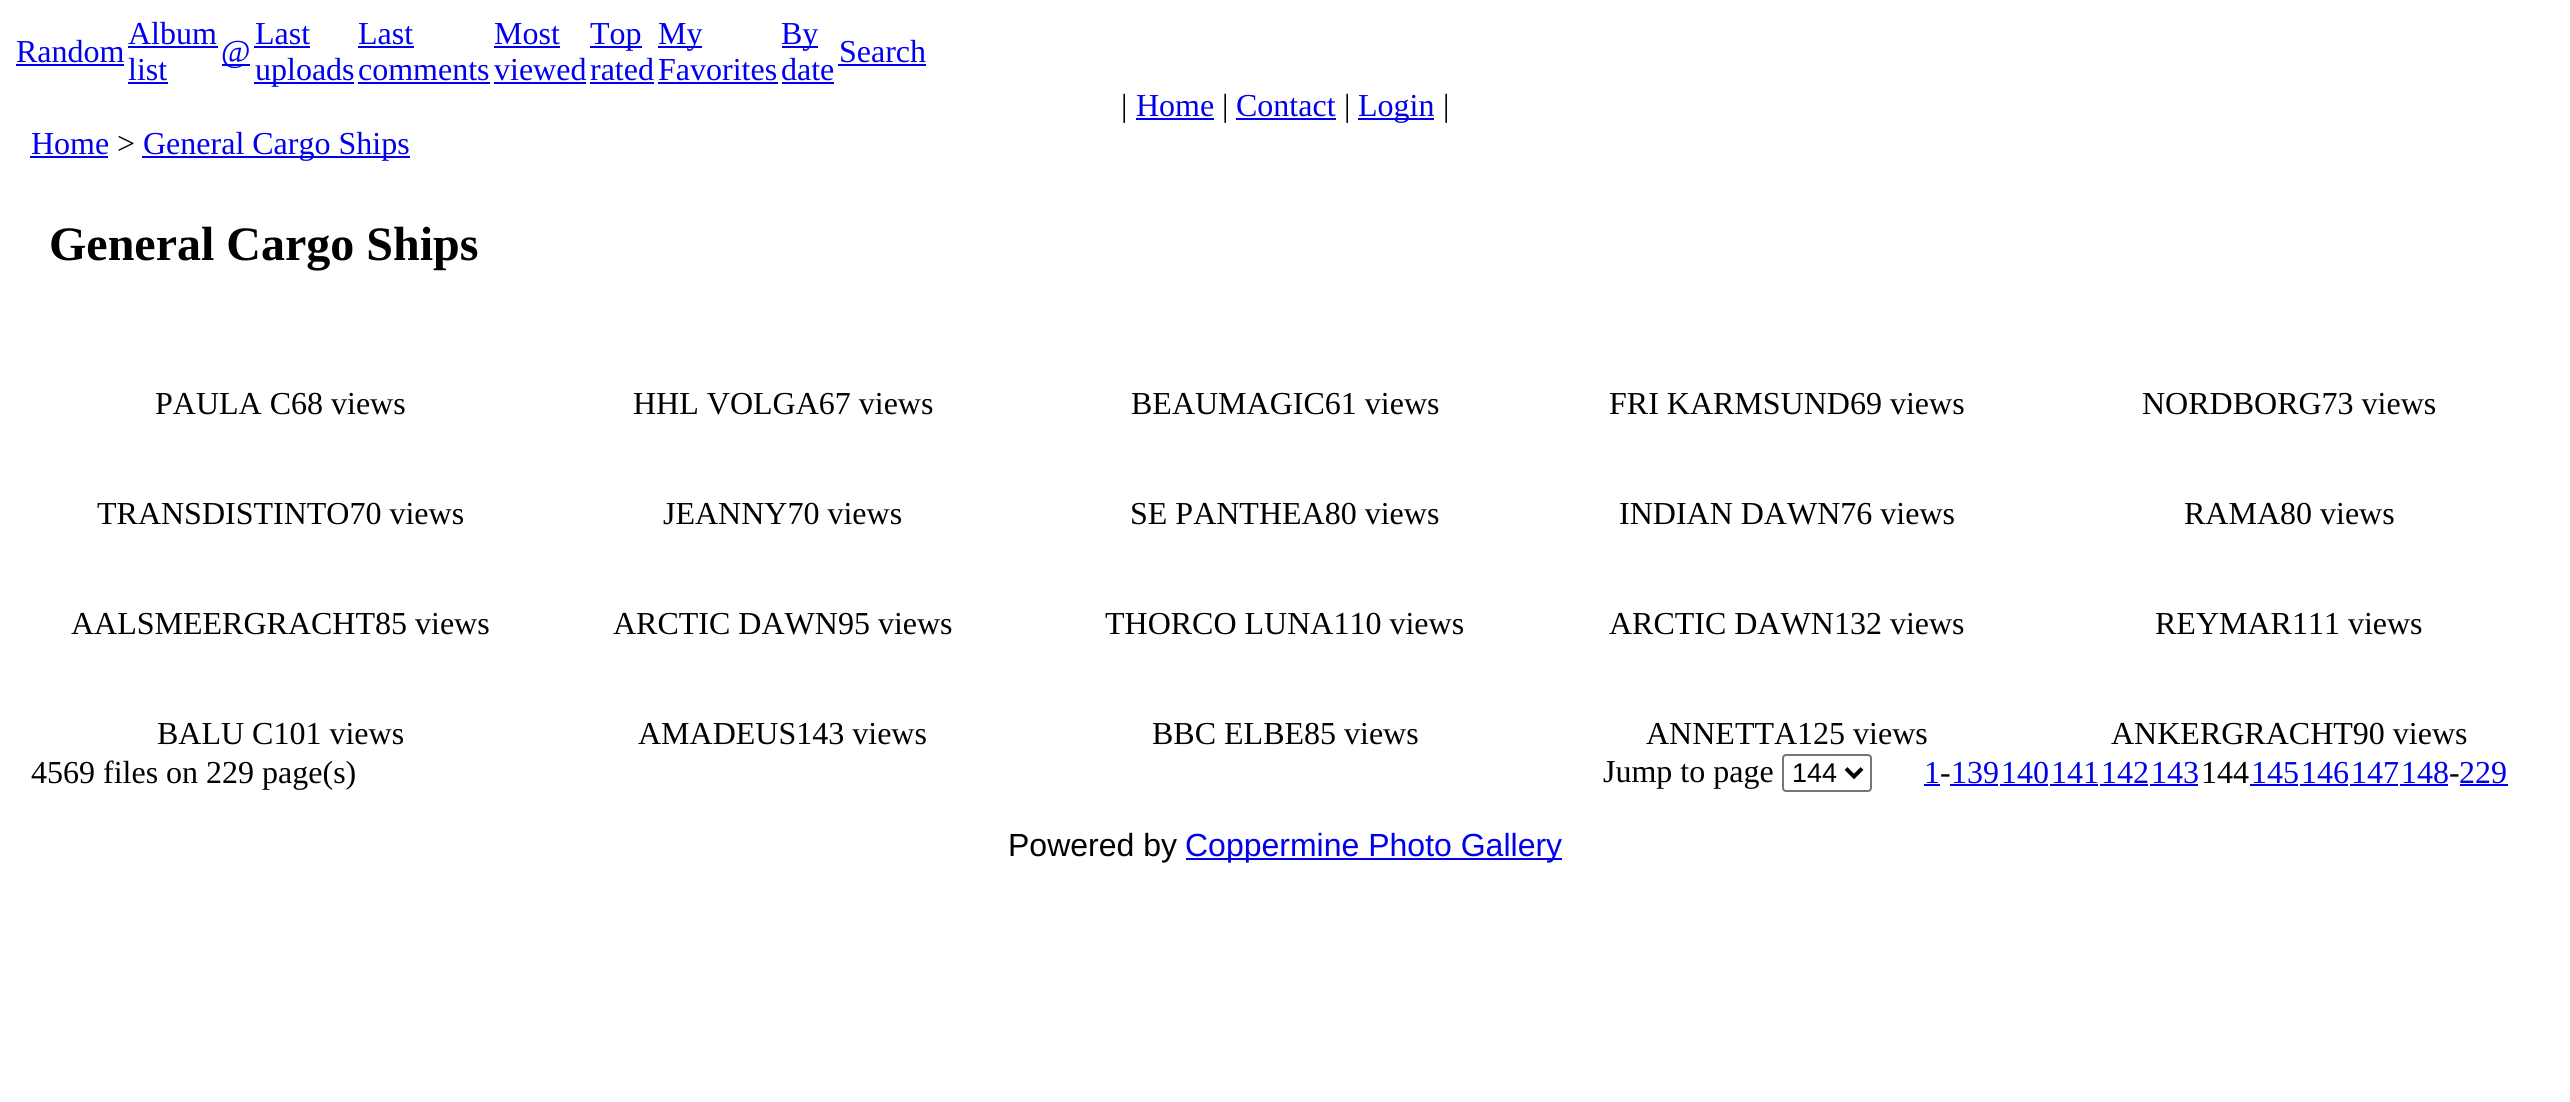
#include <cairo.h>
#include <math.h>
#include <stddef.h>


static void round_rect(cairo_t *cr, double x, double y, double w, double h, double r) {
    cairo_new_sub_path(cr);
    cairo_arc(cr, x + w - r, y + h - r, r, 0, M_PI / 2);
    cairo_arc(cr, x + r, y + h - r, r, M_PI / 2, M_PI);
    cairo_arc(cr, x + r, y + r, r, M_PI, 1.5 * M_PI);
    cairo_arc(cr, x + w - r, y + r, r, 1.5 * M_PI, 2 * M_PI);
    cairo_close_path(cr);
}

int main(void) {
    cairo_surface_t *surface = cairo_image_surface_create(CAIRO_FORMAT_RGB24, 2570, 1102);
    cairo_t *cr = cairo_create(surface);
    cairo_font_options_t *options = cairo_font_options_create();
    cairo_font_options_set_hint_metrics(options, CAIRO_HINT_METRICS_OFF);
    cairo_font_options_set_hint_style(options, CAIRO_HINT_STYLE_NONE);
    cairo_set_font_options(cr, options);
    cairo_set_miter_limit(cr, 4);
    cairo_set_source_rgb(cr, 1, 1, 1);
    cairo_paint(cr);
    cairo_select_font_face(cr, "Liberation Serif", CAIRO_FONT_SLANT_NORMAL, CAIRO_FONT_WEIGHT_NORMAL);
    cairo_set_font_size(cr, 32);
    cairo_set_source_rgb(cr, 0, 0, 0.933);
    cairo_move_to(cr, 16, 62);
    cairo_show_text(cr, "Random");
    cairo_rectangle(cr, 16, 64, 108, 2);
    cairo_fill(cr);
    cairo_move_to(cr, 128, 44);
    cairo_show_text(cr, "Album");
    cairo_rectangle(cr, 128, 46, 90, 2);
    cairo_fill(cr);
    cairo_move_to(cr, 128, 80);
    cairo_show_text(cr, "list");
    cairo_rectangle(cr, 128, 82, 40, 2);
    cairo_fill(cr);
    cairo_rectangle(cr, 222, 64, 28, 2);
    cairo_fill(cr);
    cairo_move_to(cr, 221, 62);
    cairo_show_text(cr, "@");
    cairo_move_to(cr, 255, 44);
    cairo_show_text(cr, "Last");
    cairo_rectangle(cr, 254, 46, 56, 2);
    cairo_fill(cr);
    cairo_rectangle(cr, 254, 82, 100, 2);
    cairo_fill(cr);
    cairo_move_to(cr, 255, 80);
    cairo_show_text(cr, "uploads");
    cairo_move_to(cr, 358, 44);
    cairo_show_text(cr, "Last");
    cairo_rectangle(cr, 358, 46, 56, 2);
    cairo_fill(cr);
    cairo_move_to(cr, 358, 80);
    cairo_show_text(cr, "comments");
    cairo_rectangle(cr, 358, 82, 132, 2);
    cairo_fill(cr);
    cairo_move_to(cr, 494, 44);
    cairo_show_text(cr, "Most");
    cairo_rectangle(cr, 494, 46, 66, 2);
    cairo_fill(cr);
    cairo_move_to(cr, 494, 80);
    cairo_show_text(cr, "viewed");
    cairo_rectangle(cr, 494, 82, 92, 2);
    cairo_fill(cr);
    cairo_rectangle(cr, 590, 46, 52, 2);
    cairo_fill(cr);
    cairo_move_to(cr, 590, 44);
    cairo_show_text(cr, "Top");
    cairo_move_to(cr, 590, 80);
    cairo_show_text(cr, "rated");
    cairo_rectangle(cr, 590, 82, 64, 2);
    cairo_fill(cr);
    cairo_rectangle(cr, 658, 46, 44, 2);
    cairo_fill(cr);
    cairo_move_to(cr, 658, 44);
    cairo_show_text(cr, "My");
    cairo_move_to(cr, 658, 80);
    cairo_show_text(cr, "Favorites");
    cairo_rectangle(cr, 658, 82, 120, 2);
    cairo_fill(cr);
    cairo_rectangle(cr, 782, 46, 36, 2);
    cairo_fill(cr);
    cairo_move_to(cr, 781, 44);
    cairo_show_text(cr, "By");
    cairo_move_to(cr, 781, 80);
    cairo_show_text(cr, "date");
    cairo_rectangle(cr, 782, 82, 52, 2);
    cairo_fill(cr);
    cairo_move_to(cr, 839, 62);
    cairo_show_text(cr, "Search");
    cairo_rectangle(cr, 838, 64, 88, 2);
    cairo_fill(cr);
    cairo_set_source_rgb(cr, 0, 0, 0);
    cairo_move_to(cr, 1121, 116);
    cairo_show_text(cr, "|");
    cairo_set_source_rgb(cr, 0, 0, 0.933);
    cairo_move_to(cr, 1136, 116);
    cairo_show_text(cr, "Home");
    cairo_rectangle(cr, 1136, 118, 78, 2);
    cairo_fill(cr);
    cairo_set_source_rgb(cr, 0, 0, 0);
    cairo_move_to(cr, 1222, 116);
    cairo_show_text(cr, "|");
    cairo_set_source_rgb(cr, 0, 0, 0.933);
    cairo_move_to(cr, 1236, 116);
    cairo_show_text(cr, "Contact");
    cairo_rectangle(cr, 1236, 118, 100, 2);
    cairo_fill(cr);
    cairo_set_source_rgb(cr, 0, 0, 0);
    cairo_move_to(cr, 1344, 116);
    cairo_show_text(cr, "|");
    cairo_set_source_rgb(cr, 0, 0, 0.933);
    cairo_rectangle(cr, 1358, 118, 76, 2);
    cairo_fill(cr);
    cairo_move_to(cr, 1358, 116);
    cairo_show_text(cr, "Login");
    cairo_set_source_rgb(cr, 0, 0, 0);
    cairo_move_to(cr, 1443, 116);
    cairo_show_text(cr, "|");
    cairo_set_source_rgb(cr, 0, 0, 0.933);
    cairo_move_to(cr, 31, 154);
    cairo_show_text(cr, "Home");
    cairo_rectangle(cr, 30, 156, 78, 2);
    cairo_fill(cr);
    cairo_set_source_rgb(cr, 0, 0, 0);
    cairo_move_to(cr, 117, 154);
    cairo_show_text(cr, ">");
    cairo_set_source_rgb(cr, 0, 0, 0.933);
    cairo_rectangle(cr, 142, 156, 268, 2);
    cairo_fill(cr);
    cairo_move_to(cr, 143, 154);
    cairo_show_text(cr, "General Cargo Ships");
    cairo_select_font_face(cr, "Liberation Serif", CAIRO_FONT_SLANT_NORMAL, CAIRO_FONT_WEIGHT_BOLD);
    cairo_set_font_size(cr, 48);
    cairo_set_source_rgb(cr, 0, 0, 0);
    cairo_move_to(cr, 49, 260);
    cairo_show_text(cr, "General Cargo Ships");
    cairo_select_font_face(cr, "Liberation Serif", CAIRO_FONT_SLANT_NORMAL, CAIRO_FONT_WEIGHT_NORMAL);
    cairo_set_font_size(cr, 32);
    cairo_move_to(cr, 155, 414);
    cairo_show_text(cr, "PAULA C68 views");
    cairo_move_to(cr, 633, 414);
    cairo_show_text(cr, "HHL VOLGA67 views");
    cairo_move_to(cr, 1131, 414);
    cairo_show_text(cr, "BEAUMAGIC61 views");
    cairo_move_to(cr, 1609, 414);
    cairo_show_text(cr, "FRI KARMSUND69 views");
    cairo_move_to(cr, 2142, 414);
    cairo_show_text(cr, "NORDBORG73 views");
    cairo_move_to(cr, 97, 524);
    cairo_show_text(cr, "TRANSDISTINTO70 views");
    cairo_move_to(cr, 663, 524);
    cairo_show_text(cr, "JEANNY70 views");
    cairo_move_to(cr, 1130, 524);
    cairo_show_text(cr, "SE PANTHEA80 views");
    cairo_move_to(cr, 1619, 524);
    cairo_show_text(cr, "INDIAN DAWN76 views");
    cairo_move_to(cr, 2184, 524);
    cairo_show_text(cr, "RAMA80 views");
    cairo_move_to(cr, 71, 634);
    cairo_show_text(cr, "AALSMEERGRACHT85 views");
    cairo_move_to(cr, 613, 634);
    cairo_show_text(cr, "ARCTIC DAWN95 views");
    cairo_move_to(cr, 1105, 634);
    cairo_show_text(cr, "THORCO LUNA110 views");
    cairo_move_to(cr, 1609, 634);
    cairo_show_text(cr, "ARCTIC DAWN132 views");
    cairo_move_to(cr, 2155, 634);
    cairo_show_text(cr, "REYMAR111 views");
    cairo_move_to(cr, 157, 744);
    cairo_show_text(cr, "BALU C101 views");
    cairo_move_to(cr, 638, 744);
    cairo_show_text(cr, "AMADEUS143 views");
    cairo_move_to(cr, 1152, 744);
    cairo_show_text(cr, "BBC ELBE85 views");
    cairo_move_to(cr, 1646, 744);
    cairo_show_text(cr, "ANNETTA125 views");
    cairo_move_to(cr, 2111, 744);
    cairo_show_text(cr, "ANKERGRACHT90 views");
    cairo_move_to(cr, 31, 783);
    cairo_show_text(cr, "4569 files on 229 page(s)");
    cairo_move_to(cr, 1603, 782);
    cairo_show_text(cr, "Jump to page");
    round_rect(cr, 1783, 755, 88, 36, 3);
    cairo_set_source_rgb(cr, 0.463, 0.463, 0.463);
    cairo_stroke(cr);
    cairo_new_path(cr);
    cairo_move_to(cr, 1846, 768.5);
    cairo_line_to(cr, 1854, 776.5);
    cairo_line_to(cr, 1862, 768.5);
    cairo_set_source_rgb(cr, 0, 0, 0);
    cairo_set_line_width(cr, 4);
    cairo_stroke(cr);
    cairo_select_font_face(cr, "Liberation Sans", CAIRO_FONT_SLANT_NORMAL, CAIRO_FONT_WEIGHT_NORMAL);
    cairo_set_font_size(cr, 27);
    cairo_move_to(cr, 1792, 782);
    cairo_show_text(cr, "144");
    cairo_select_font_face(cr, "Liberation Serif", CAIRO_FONT_SLANT_NORMAL, CAIRO_FONT_WEIGHT_NORMAL);
    cairo_set_font_size(cr, 32);
    cairo_set_source_rgb(cr, 0, 0, 0.933);
    cairo_move_to(cr, 1924, 783);
    cairo_show_text(cr, "1");
    cairo_rectangle(cr, 1924, 784, 16, 2);
    cairo_fill(cr);
    cairo_set_source_rgb(cr, 0, 0, 0);
    cairo_move_to(cr, 1940, 783);
    cairo_show_text(cr, "-");
    cairo_set_source_rgb(cr, 0, 0, 0.933);
    cairo_move_to(cr, 1951, 783);
    cairo_show_text(cr, "139");
    cairo_rectangle(cr, 1950, 784, 48, 2);
    cairo_fill(cr);
    cairo_move_to(cr, 2001, 783);
    cairo_show_text(cr, "140");
    cairo_rectangle(cr, 2000, 784, 48, 2);
    cairo_fill(cr);
    cairo_move_to(cr, 2051, 783);
    cairo_show_text(cr, "141");
    cairo_rectangle(cr, 2050, 784, 48, 2);
    cairo_fill(cr);
    cairo_move_to(cr, 2101, 783);
    cairo_show_text(cr, "142");
    cairo_rectangle(cr, 2100, 784, 48, 2);
    cairo_fill(cr);
    cairo_move_to(cr, 2151, 783);
    cairo_show_text(cr, "143");
    cairo_rectangle(cr, 2150, 784, 48, 2);
    cairo_fill(cr);
    cairo_set_source_rgb(cr, 0, 0, 0);
    cairo_move_to(cr, 2201, 783);
    cairo_show_text(cr, "144");
    cairo_set_source_rgb(cr, 0, 0, 0.933);
    cairo_move_to(cr, 2251, 783);
    cairo_show_text(cr, "145");
    cairo_rectangle(cr, 2250, 784, 48, 2);
    cairo_fill(cr);
    cairo_move_to(cr, 2301, 783);
    cairo_show_text(cr, "146");
    cairo_rectangle(cr, 2300, 784, 48, 2);
    cairo_fill(cr);
    cairo_move_to(cr, 2351, 783);
    cairo_show_text(cr, "147");
    cairo_rectangle(cr, 2350, 784, 48, 2);
    cairo_fill(cr);
    cairo_move_to(cr, 2401, 783);
    cairo_show_text(cr, "148");
    cairo_rectangle(cr, 2400, 784, 48, 2);
    cairo_fill(cr);
    cairo_set_source_rgb(cr, 0, 0, 0);
    cairo_move_to(cr, 2449, 783);
    cairo_show_text(cr, "-");
    cairo_set_source_rgb(cr, 0, 0, 0.933);
    cairo_move_to(cr, 2459, 783);
    cairo_show_text(cr, "229");
    cairo_rectangle(cr, 2460, 784, 48, 2);
    cairo_fill(cr);
    cairo_select_font_face(cr, "Liberation Sans", CAIRO_FONT_SLANT_NORMAL, CAIRO_FONT_WEIGHT_NORMAL);
    cairo_set_source_rgb(cr, 0, 0, 0);
    cairo_move_to(cr, 1008, 856);
    cairo_show_text(cr, "Powered by");
    cairo_set_source_rgb(cr, 0, 0, 0.933);
    cairo_rectangle(cr, 1186, 858, 376, 2);
    cairo_fill(cr);
    cairo_move_to(cr, 1185, 856);
    cairo_show_text(cr, "Coppermine Photo Gallery");
    cairo_surface_write_to_png(surface, "page.png");
    cairo_font_options_destroy(options);
    cairo_destroy(cr);
    cairo_surface_destroy(surface);
    return 0;
}
